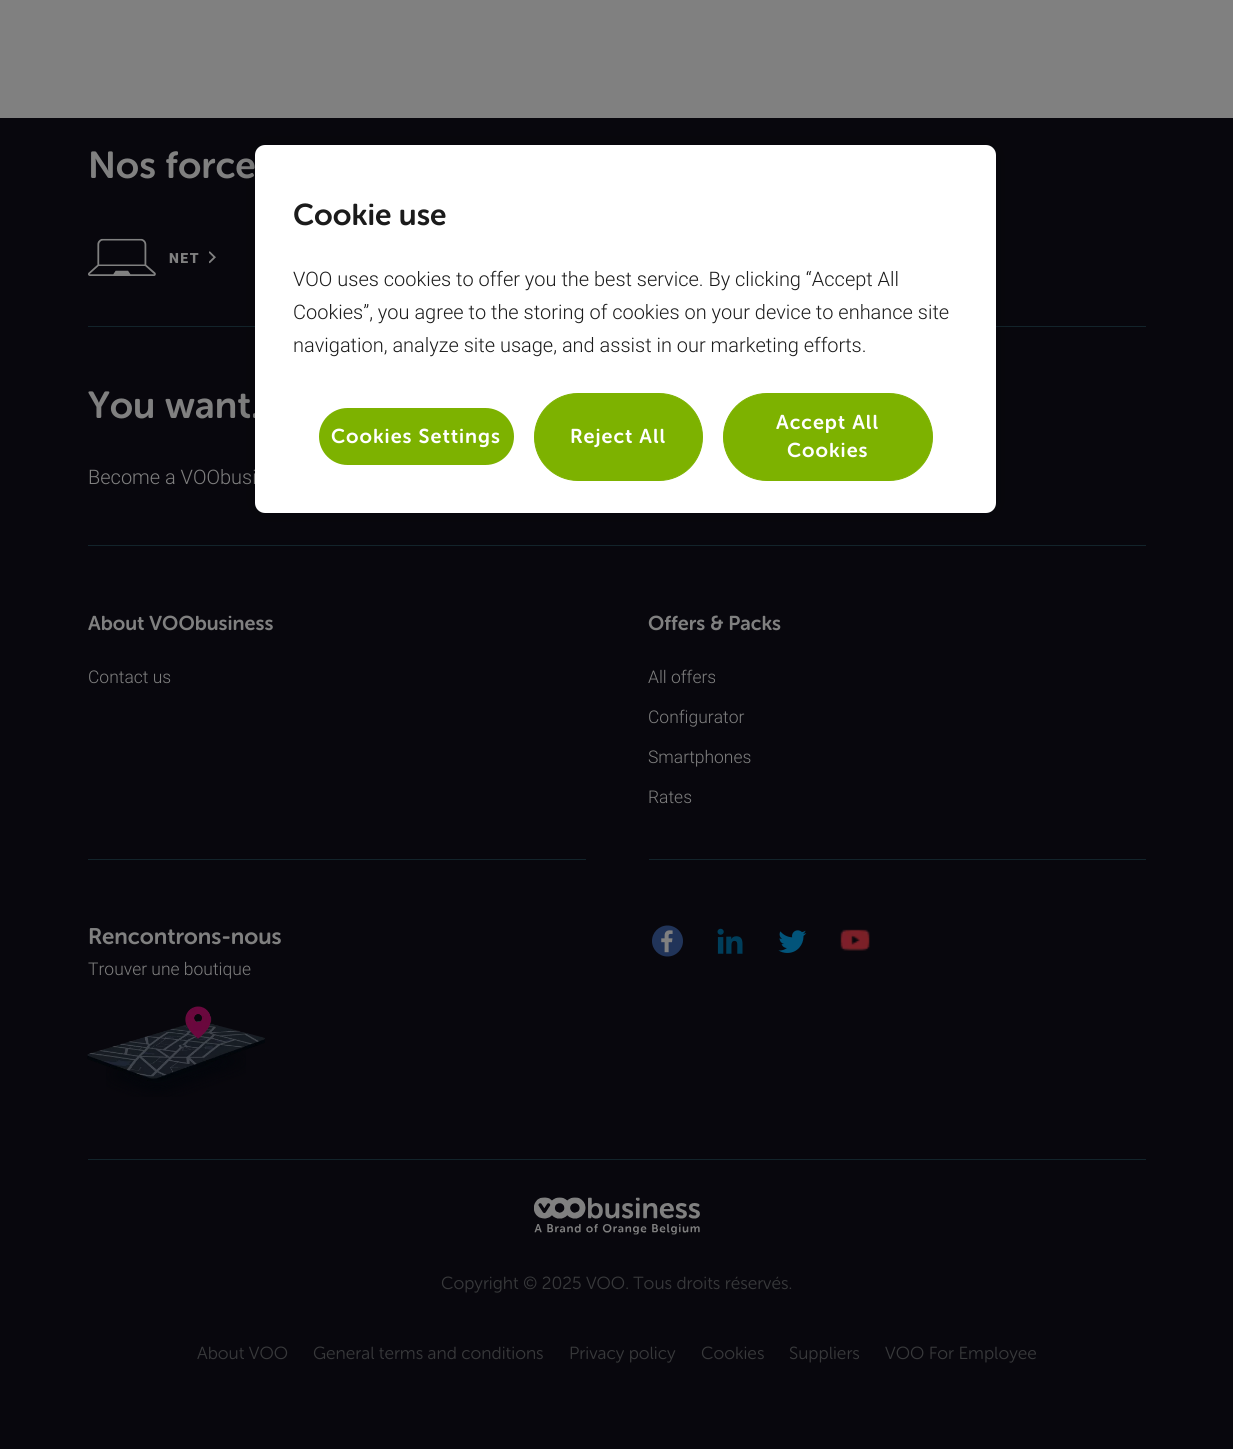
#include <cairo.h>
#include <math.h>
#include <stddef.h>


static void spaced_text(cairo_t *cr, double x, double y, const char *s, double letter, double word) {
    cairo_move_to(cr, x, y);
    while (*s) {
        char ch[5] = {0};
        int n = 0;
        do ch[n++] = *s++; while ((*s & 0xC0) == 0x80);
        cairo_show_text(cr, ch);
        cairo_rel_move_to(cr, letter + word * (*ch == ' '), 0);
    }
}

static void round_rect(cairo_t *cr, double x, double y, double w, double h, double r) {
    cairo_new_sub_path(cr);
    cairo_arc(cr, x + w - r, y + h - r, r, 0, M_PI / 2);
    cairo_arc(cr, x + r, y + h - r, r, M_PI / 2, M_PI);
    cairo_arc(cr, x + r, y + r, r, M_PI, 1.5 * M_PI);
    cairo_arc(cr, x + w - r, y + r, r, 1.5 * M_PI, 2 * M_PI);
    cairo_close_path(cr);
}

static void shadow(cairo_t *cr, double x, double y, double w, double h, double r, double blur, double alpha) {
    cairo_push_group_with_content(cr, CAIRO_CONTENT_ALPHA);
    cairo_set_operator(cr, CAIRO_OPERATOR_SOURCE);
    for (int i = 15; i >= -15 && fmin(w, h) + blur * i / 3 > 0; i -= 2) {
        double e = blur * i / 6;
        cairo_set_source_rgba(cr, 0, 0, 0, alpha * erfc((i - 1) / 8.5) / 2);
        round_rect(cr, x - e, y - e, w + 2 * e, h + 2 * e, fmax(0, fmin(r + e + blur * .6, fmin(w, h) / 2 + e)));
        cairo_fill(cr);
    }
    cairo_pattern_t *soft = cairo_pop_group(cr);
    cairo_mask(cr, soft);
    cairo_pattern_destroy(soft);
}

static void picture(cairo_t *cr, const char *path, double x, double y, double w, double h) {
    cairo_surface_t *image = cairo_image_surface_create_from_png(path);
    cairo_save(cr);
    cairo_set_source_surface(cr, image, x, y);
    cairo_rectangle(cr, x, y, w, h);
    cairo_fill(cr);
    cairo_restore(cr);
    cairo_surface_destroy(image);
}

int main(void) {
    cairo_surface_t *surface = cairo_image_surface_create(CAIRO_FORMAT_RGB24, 1233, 1449);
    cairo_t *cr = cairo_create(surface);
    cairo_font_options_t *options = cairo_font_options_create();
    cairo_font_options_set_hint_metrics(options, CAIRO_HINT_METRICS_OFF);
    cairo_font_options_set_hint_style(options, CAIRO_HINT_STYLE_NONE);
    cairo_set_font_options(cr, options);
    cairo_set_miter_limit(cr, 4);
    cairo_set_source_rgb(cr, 0.502, 0.502, 0.502);
    cairo_paint(cr);
    cairo_set_source_rgb(cr, 0.035, 0.031, 0.051);
    cairo_rectangle(cr, 0, 118, 1233, 1331);
    cairo_fill(cr);
    cairo_select_font_face(cr, "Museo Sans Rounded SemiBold", CAIRO_FONT_SLANT_NORMAL, CAIRO_FONT_WEIGHT_NORMAL);
    cairo_set_font_size(cr, 37.5);
    cairo_set_source_rgb(cr, 0.502, 0.502, 0.502);
    cairo_move_to(cr, 88, 178);
    cairo_show_text(cr, "Nos force");
    picture(cr, "img1.png", 88, 238, 68, 38);
    cairo_select_font_face(cr, "Roboto Black", CAIRO_FONT_SLANT_NORMAL, CAIRO_FONT_WEIGHT_NORMAL);
    cairo_set_font_size(cr, 14);
    spaced_text(cr, 169, 263, "NET", 1.5, 0);
    picture(cr, "img2.png", 209, 251, 7, 13);
    cairo_set_source_rgb(cr, 0.078, 0.141, 0.169);
    cairo_rectangle(cr, 88, 326, 1058, 1);
    cairo_fill(cr);
    cairo_rectangle(cr, 88, 545, 1058, 1);
    cairo_fill(cr);
    cairo_select_font_face(cr, "Museo Sans Rounded SemiBold", CAIRO_FONT_SLANT_NORMAL, CAIRO_FONT_WEIGHT_NORMAL);
    cairo_set_font_size(cr, 37.5);
    cairo_set_source_rgb(cr, 0.502, 0.502, 0.502);
    cairo_move_to(cr, 88, 418);
    cairo_show_text(cr, "You want.");
    cairo_select_font_face(cr, "Roboto Light", CAIRO_FONT_SLANT_NORMAL, CAIRO_FONT_WEIGHT_NORMAL);
    cairo_set_font_size(cr, 20);
    cairo_move_to(cr, 88, 484);
    cairo_show_text(cr, "Become a VOObusi");
    cairo_set_source_rgb(cr, 0.078, 0.141, 0.169);
    cairo_rectangle(cr, 88, 859, 498, 1);
    cairo_fill(cr);
    cairo_select_font_face(cr, "Museo Sans Rounded SemiBold", CAIRO_FONT_SLANT_NORMAL, CAIRO_FONT_WEIGHT_NORMAL);
    cairo_set_source_rgb(cr, 0.502, 0.502, 0.502);
    cairo_move_to(cr, 88, 630);
    cairo_show_text(cr, "About VOObusiness");
    cairo_select_font_face(cr, "Roboto Light", CAIRO_FONT_SLANT_NORMAL, CAIRO_FONT_WEIGHT_NORMAL);
    cairo_set_font_size(cr, 17.5);
    cairo_move_to(cr, 88, 683);
    cairo_show_text(cr, "Contact us");
    cairo_set_source_rgb(cr, 0.078, 0.141, 0.169);
    cairo_rectangle(cr, 649, 859, 497, 1);
    cairo_fill(cr);
    cairo_select_font_face(cr, "Museo Sans Rounded SemiBold", CAIRO_FONT_SLANT_NORMAL, CAIRO_FONT_WEIGHT_NORMAL);
    cairo_set_font_size(cr, 20);
    cairo_set_source_rgb(cr, 0.502, 0.502, 0.502);
    cairo_move_to(cr, 648, 630);
    cairo_show_text(cr, "Offers & Packs");
    cairo_select_font_face(cr, "Roboto Light", CAIRO_FONT_SLANT_NORMAL, CAIRO_FONT_WEIGHT_NORMAL);
    cairo_set_font_size(cr, 17.5);
    cairo_move_to(cr, 648, 683);
    cairo_show_text(cr, "All offers");
    cairo_move_to(cr, 648, 723);
    cairo_show_text(cr, "Configurator");
    cairo_move_to(cr, 648, 763);
    cairo_show_text(cr, "Smartphones");
    cairo_move_to(cr, 648, 803);
    cairo_show_text(cr, "Rates");
    cairo_select_font_face(cr, "Museo Sans Rounded SemiBold", CAIRO_FONT_SLANT_NORMAL, CAIRO_FONT_WEIGHT_NORMAL);
    cairo_set_font_size(cr, 22.5);
    cairo_move_to(cr, 88, 944);
    cairo_show_text(cr, "Rencontrons-nous");
    cairo_select_font_face(cr, "Roboto Light", CAIRO_FONT_SLANT_NORMAL, CAIRO_FONT_WEIGHT_NORMAL);
    cairo_set_font_size(cr, 17.5);
    cairo_move_to(cr, 88, 975);
    cairo_show_text(cr, "Trouver une boutique");
    picture(cr, "img5.png", 106, 1049, 140, 48);
    picture(cr, "img4.png", 87, 1021, 178, 60);
    picture(cr, "img3.png", 185, 1006, 27, 33);
    picture(cr, "img6.png", 652, 925, 31, 32);
    picture(cr, "img7.png", 717, 928, 26, 26);
    picture(cr, "img8.png", 778, 930, 29, 23);
    picture(cr, "img9.png", 840, 929, 30, 22);
    cairo_set_source_rgb(cr, 0.078, 0.141, 0.169);
    cairo_rectangle(cr, 88, 1159, 1058, 1);
    cairo_fill(cr);
    picture(cr, "img10.png", 534, 1197, 166, 38);
    cairo_select_font_face(cr, "Museo Sans Rounded Light", CAIRO_FONT_SLANT_NORMAL, CAIRO_FONT_WEIGHT_NORMAL);
    cairo_set_source_rgb(cr, 0.22, 0.224, 0.231);
    cairo_move_to(cr, 441, 1289);
    cairo_show_text(cr, "Copyright © 2025 VOO. Tous droits réservés.");
    cairo_move_to(cr, 197, 1359);
    cairo_show_text(cr, "About VOO");
    cairo_move_to(cr, 313, 1359);
    cairo_show_text(cr, "General terms and conditions");
    cairo_move_to(cr, 569, 1359);
    cairo_show_text(cr, "Privacy policy");
    cairo_move_to(cr, 701, 1359);
    cairo_show_text(cr, "Cookies");
    cairo_move_to(cr, 789, 1359);
    cairo_show_text(cr, "Suppliers");
    cairo_move_to(cr, 885, 1359);
    cairo_show_text(cr, "VOO For Employee");
    cairo_set_source_rgb(cr, 0, 0, 0);
    shadow(cr, 255, 145, 741, 368, 10, 11, 0.2);
    cairo_set_source_rgb(cr, 1, 1, 1);
    round_rect(cr, 255, 145, 741, 368, 10);
    cairo_fill(cr);
    cairo_select_font_face(cr, "Museo Sans Rounded SemiBold", CAIRO_FONT_SLANT_NORMAL, CAIRO_FONT_WEIGHT_NORMAL);
    cairo_set_font_size(cr, 30);
    cairo_set_source_rgb(cr, 0.106, 0.106, 0.106);
    cairo_move_to(cr, 293, 225);
    cairo_show_text(cr, "Cookie use");
    cairo_select_font_face(cr, "Roboto Light", CAIRO_FONT_SLANT_NORMAL, CAIRO_FONT_WEIGHT_NORMAL);
    cairo_set_font_size(cr, 20);
    cairo_move_to(cr, 293, 286);
    cairo_show_text(cr, "VOO uses cookies to offer you the best service. By clicking “Accept All");
    cairo_move_to(cr, 293, 319);
    cairo_show_text(cr, "Cookies”, you agree to the storing of cookies on your device to enhance site");
    cairo_move_to(cr, 293, 352);
    cairo_show_text(cr, "navigation, analyze site usage, and assist in our marketing efforts.");
    cairo_set_source_rgb(cr, 0.49, 0.698, 0);
    round_rect(cr, 319, 408, 195, 57, 28.5);
    cairo_fill(cr);
    cairo_select_font_face(cr, "Museo Sans Rounded SemiBold", CAIRO_FONT_SLANT_NORMAL, CAIRO_FONT_WEIGHT_NORMAL);
    cairo_set_source_rgb(cr, 1, 1, 1);
    spaced_text(cr, 331, 443, "Cookies Settings", 1, 0);
    cairo_set_source_rgb(cr, 0.49, 0.698, 0);
    round_rect(cr, 534.5, 393.5, 168, 87, 43.5);
    cairo_fill_preserve(cr);
    cairo_set_line_width(cr, 1);
    cairo_stroke(cr);
    cairo_set_source_rgb(cr, 1, 1, 1);
    spaced_text(cr, 570, 443, "Reject All", 1, 0);
    cairo_set_source_rgb(cr, 0.49, 0.698, 0);
    round_rect(cr, 723.5, 393.5, 209, 87, 43.5);
    cairo_fill_preserve(cr);
    cairo_stroke(cr);
    cairo_set_source_rgb(cr, 1, 1, 1);
    spaced_text(cr, 776, 429, "Accept All", 1, 0);
    spaced_text(cr, 787, 457, "Cookies", 1, 0);
    cairo_surface_write_to_png(surface, "page.png");
    cairo_font_options_destroy(options);
    cairo_destroy(cr);
    cairo_surface_destroy(surface);
    return 0;
}
